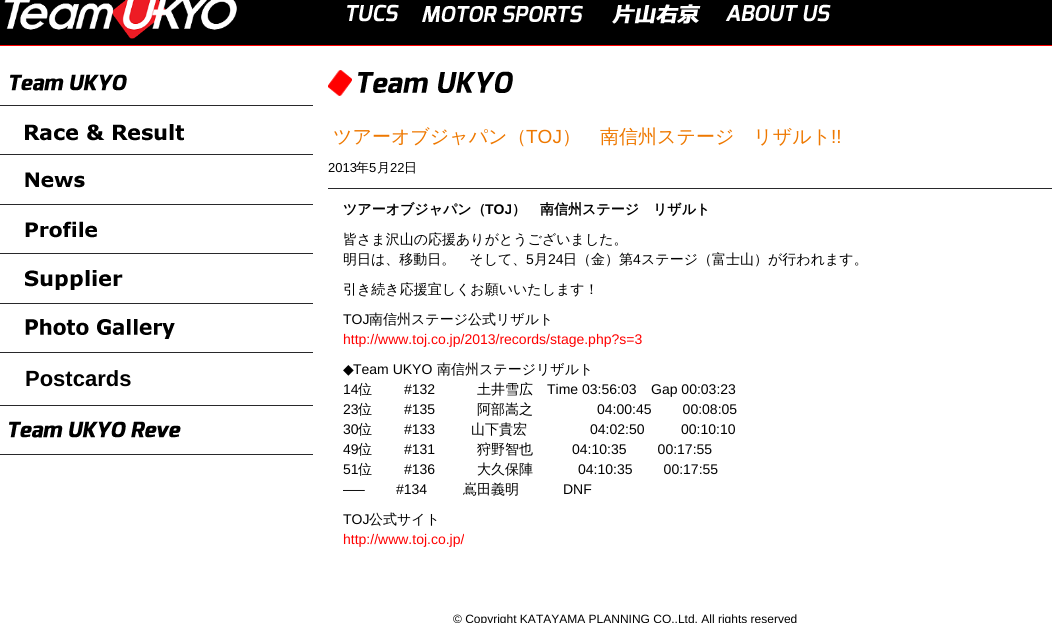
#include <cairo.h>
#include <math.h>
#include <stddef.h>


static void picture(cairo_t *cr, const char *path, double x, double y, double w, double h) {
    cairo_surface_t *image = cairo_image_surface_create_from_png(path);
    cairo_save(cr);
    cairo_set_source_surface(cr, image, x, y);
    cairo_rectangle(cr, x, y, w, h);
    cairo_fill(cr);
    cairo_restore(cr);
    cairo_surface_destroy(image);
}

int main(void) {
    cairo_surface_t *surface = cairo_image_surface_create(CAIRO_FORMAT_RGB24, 1052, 623);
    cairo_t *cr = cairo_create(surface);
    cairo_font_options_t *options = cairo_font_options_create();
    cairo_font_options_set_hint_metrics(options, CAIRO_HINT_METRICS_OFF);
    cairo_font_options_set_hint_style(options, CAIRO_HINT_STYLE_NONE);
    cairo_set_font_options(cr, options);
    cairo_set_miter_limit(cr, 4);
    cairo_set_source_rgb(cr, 1, 1, 1);
    cairo_paint(cr);
    cairo_set_source_rgb(cr, 0, 0, 0);
    cairo_rectangle(cr, 0, 0, 1052, 45);
    cairo_fill(cr);
    cairo_set_source_rgb(cr, 1, 0, 0);
    cairo_rectangle(cr, 0, 45, 1052, 1);
    cairo_fill(cr);
    picture(cr, "img1.png", 4, 0, 233, 39);
    picture(cr, "img2.png", 347, 4, 52, 18);
    picture(cr, "img3.png", 422, 5, 161, 18);
    picture(cr, "img4.png", 612, 4, 89, 20);
    picture(cr, "img5.png", 725, 4, 106, 18);
    cairo_set_source_rgb(cr, 0.161, 0.161, 0.169);
    cairo_rectangle(cr, 0, 105, 313, 1);
    cairo_fill(cr);
    picture(cr, "img6.png", 10, 74, 117, 17);
    cairo_rectangle(cr, 0, 154, 313, 1);
    cairo_fill(cr);
    picture(cr, "img7.png", 25, 124, 159, 17);
    cairo_rectangle(cr, 0, 204, 313, 1);
    cairo_fill(cr);
    picture(cr, "img8.png", 25, 172, 60, 16);
    cairo_rectangle(cr, 0, 253, 313, 1);
    cairo_fill(cr);
    picture(cr, "img9.png", 25, 221, 72, 17);
    cairo_rectangle(cr, 0, 303, 313, 1);
    cairo_fill(cr);
    picture(cr, "img10.png", 25, 270, 98, 20);
    cairo_rectangle(cr, 0, 352, 313, 1);
    cairo_fill(cr);
    picture(cr, "img11.png", 25, 319, 150, 20);
    cairo_rectangle(cr, 0, 405, 313, 1);
    cairo_fill(cr);
    cairo_select_font_face(cr, "Liberation Sans", CAIRO_FONT_SLANT_NORMAL, CAIRO_FONT_WEIGHT_BOLD);
    cairo_set_font_size(cr, 22);
    cairo_set_source_rgb(cr, 0, 0, 0);
    cairo_move_to(cr, 25, 386);
    cairo_show_text(cr, "Postcards");
    cairo_set_source_rgb(cr, 0.161, 0.161, 0.169);
    cairo_rectangle(cr, 0, 454, 313, 1);
    cairo_fill(cr);
    picture(cr, "img12.png", 9, 421, 172, 17);
    picture(cr, "img13.png", 328, 70, 24, 26);
    picture(cr, "img14.png", 358, 71, 155, 22);
    cairo_select_font_face(cr, "WenQuanYi Zen Hei Medium", CAIRO_FONT_SLANT_NORMAL, CAIRO_FONT_WEIGHT_NORMAL);
    cairo_set_font_size(cr, 19);
    cairo_set_source_rgb(cr, 0.933, 0.471, 0);
    cairo_move_to(cr, 333, 143);
    cairo_show_text(cr, "ツアーオブジャパン（");
    cairo_select_font_face(cr, "Liberation Sans", CAIRO_FONT_SLANT_NORMAL, CAIRO_FONT_WEIGHT_NORMAL);
    cairo_move_to(cr, 526, 143);
    cairo_show_text(cr, "TOJ");
    cairo_select_font_face(cr, "WenQuanYi Zen Hei Medium", CAIRO_FONT_SLANT_NORMAL, CAIRO_FONT_WEIGHT_NORMAL);
    cairo_move_to(cr, 562, 143);
    cairo_show_text(cr, "）　南信州ステージ　リザルト");
    cairo_select_font_face(cr, "Liberation Sans", CAIRO_FONT_SLANT_NORMAL, CAIRO_FONT_WEIGHT_NORMAL);
    cairo_move_to(cr, 831, 143);
    cairo_show_text(cr, "!!");
    cairo_set_source_rgb(cr, 0.161, 0.161, 0.169);
    cairo_rectangle(cr, 328, 188, 724, 1);
    cairo_fill(cr);
    cairo_set_font_size(cr, 13);
    cairo_set_source_rgb(cr, 0, 0, 0);
    cairo_move_to(cr, 328, 172);
    cairo_show_text(cr, "2013");
    cairo_select_font_face(cr, "WenQuanYi Zen Hei Medium", CAIRO_FONT_SLANT_NORMAL, CAIRO_FONT_WEIGHT_NORMAL);
    cairo_move_to(cr, 356, 172);
    cairo_show_text(cr, "年");
    cairo_select_font_face(cr, "Liberation Sans", CAIRO_FONT_SLANT_NORMAL, CAIRO_FONT_WEIGHT_NORMAL);
    cairo_move_to(cr, 369, 172);
    cairo_show_text(cr, "5");
    cairo_select_font_face(cr, "WenQuanYi Zen Hei Medium", CAIRO_FONT_SLANT_NORMAL, CAIRO_FONT_WEIGHT_NORMAL);
    cairo_move_to(cr, 377, 172);
    cairo_show_text(cr, "月");
    cairo_select_font_face(cr, "Liberation Sans", CAIRO_FONT_SLANT_NORMAL, CAIRO_FONT_WEIGHT_NORMAL);
    cairo_move_to(cr, 390, 172);
    cairo_show_text(cr, "22");
    cairo_select_font_face(cr, "WenQuanYi Zen Hei Medium", CAIRO_FONT_SLANT_NORMAL, CAIRO_FONT_WEIGHT_NORMAL);
    cairo_move_to(cr, 404, 172);
    cairo_show_text(cr, "日");
    cairo_select_font_face(cr, "WenQuanYi Zen Hei", CAIRO_FONT_SLANT_NORMAL, CAIRO_FONT_WEIGHT_BOLD);
    cairo_set_font_size(cr, 14);
    cairo_move_to(cr, 343, 214);
    cairo_show_text(cr, "ツアーオブジャパン（");
    cairo_select_font_face(cr, "Liberation Sans", CAIRO_FONT_SLANT_NORMAL, CAIRO_FONT_WEIGHT_BOLD);
    cairo_move_to(cr, 485, 214);
    cairo_show_text(cr, "TOJ");
    cairo_select_font_face(cr, "WenQuanYi Zen Hei", CAIRO_FONT_SLANT_NORMAL, CAIRO_FONT_WEIGHT_BOLD);
    cairo_move_to(cr, 512, 214);
    cairo_show_text(cr, "）　南信州ステージ　リザルト");
    cairo_select_font_face(cr, "WenQuanYi Zen Hei Medium", CAIRO_FONT_SLANT_NORMAL, CAIRO_FONT_WEIGHT_NORMAL);
    cairo_move_to(cr, 343, 244);
    cairo_show_text(cr, "皆さま沢山の応援ありがとうございました。");
    cairo_move_to(cr, 343, 264);
    cairo_show_text(cr, "明日は、移動日。　そして、");
    cairo_select_font_face(cr, "Liberation Sans", CAIRO_FONT_SLANT_NORMAL, CAIRO_FONT_WEIGHT_NORMAL);
    cairo_move_to(cr, 526, 264);
    cairo_show_text(cr, "5");
    cairo_select_font_face(cr, "WenQuanYi Zen Hei Medium", CAIRO_FONT_SLANT_NORMAL, CAIRO_FONT_WEIGHT_NORMAL);
    cairo_move_to(cr, 534, 264);
    cairo_show_text(cr, "月");
    cairo_select_font_face(cr, "Liberation Sans", CAIRO_FONT_SLANT_NORMAL, CAIRO_FONT_WEIGHT_NORMAL);
    cairo_move_to(cr, 548, 264);
    cairo_show_text(cr, "24");
    cairo_select_font_face(cr, "WenQuanYi Zen Hei Medium", CAIRO_FONT_SLANT_NORMAL, CAIRO_FONT_WEIGHT_NORMAL);
    cairo_move_to(cr, 563, 264);
    cairo_show_text(cr, "日（金）第");
    cairo_select_font_face(cr, "Liberation Sans", CAIRO_FONT_SLANT_NORMAL, CAIRO_FONT_WEIGHT_NORMAL);
    cairo_move_to(cr, 633, 264);
    cairo_show_text(cr, "4");
    cairo_select_font_face(cr, "WenQuanYi Zen Hei Medium", CAIRO_FONT_SLANT_NORMAL, CAIRO_FONT_WEIGHT_NORMAL);
    cairo_move_to(cr, 641, 264);
    cairo_show_text(cr, "ステージ（富士山）が行われます。");
    cairo_move_to(cr, 343, 294);
    cairo_show_text(cr, "引き続き応援宜しくお願いいたします！");
    cairo_select_font_face(cr, "Liberation Sans", CAIRO_FONT_SLANT_NORMAL, CAIRO_FONT_WEIGHT_NORMAL);
    cairo_move_to(cr, 343, 324);
    cairo_show_text(cr, "TOJ");
    cairo_select_font_face(cr, "WenQuanYi Zen Hei Medium", CAIRO_FONT_SLANT_NORMAL, CAIRO_FONT_WEIGHT_NORMAL);
    cairo_move_to(cr, 369, 324);
    cairo_show_text(cr, "南信州ステージ公式リザルト");
    cairo_select_font_face(cr, "Liberation Sans", CAIRO_FONT_SLANT_NORMAL, CAIRO_FONT_WEIGHT_NORMAL);
    cairo_set_source_rgb(cr, 1, 0, 0);
    cairo_move_to(cr, 343, 344);
    cairo_show_text(cr, "http://www.toj.co.jp/2013/records/stage.php?s=3");
    cairo_select_font_face(cr, "DejaVu Sans", CAIRO_FONT_SLANT_NORMAL, CAIRO_FONT_WEIGHT_NORMAL);
    cairo_set_source_rgb(cr, 0, 0, 0);
    cairo_move_to(cr, 343, 374);
    cairo_show_text(cr, "◆");
    cairo_select_font_face(cr, "Liberation Sans", CAIRO_FONT_SLANT_NORMAL, CAIRO_FONT_WEIGHT_NORMAL);
    cairo_move_to(cr, 353, 374);
    cairo_show_text(cr, "Team UKYO");
    cairo_select_font_face(cr, "WenQuanYi Zen Hei Medium", CAIRO_FONT_SLANT_NORMAL, CAIRO_FONT_WEIGHT_NORMAL);
    cairo_move_to(cr, 437, 374);
    cairo_show_text(cr, "南信州ステージリザルト");
    cairo_select_font_face(cr, "Liberation Sans", CAIRO_FONT_SLANT_NORMAL, CAIRO_FONT_WEIGHT_NORMAL);
    cairo_move_to(cr, 343, 394);
    cairo_show_text(cr, "14");
    cairo_select_font_face(cr, "WenQuanYi Zen Hei Medium", CAIRO_FONT_SLANT_NORMAL, CAIRO_FONT_WEIGHT_NORMAL);
    cairo_move_to(cr, 358, 394);
    cairo_show_text(cr, "位");
    cairo_select_font_face(cr, "Liberation Sans", CAIRO_FONT_SLANT_NORMAL, CAIRO_FONT_WEIGHT_NORMAL);
    cairo_move_to(cr, 404, 394);
    cairo_show_text(cr, "#132");
    cairo_select_font_face(cr, "WenQuanYi Zen Hei Medium", CAIRO_FONT_SLANT_NORMAL, CAIRO_FONT_WEIGHT_NORMAL);
    cairo_move_to(cr, 477, 394);
    cairo_show_text(cr, "土井雪広");
    cairo_select_font_face(cr, "Liberation Sans", CAIRO_FONT_SLANT_NORMAL, CAIRO_FONT_WEIGHT_NORMAL);
    cairo_move_to(cr, 547, 394);
    cairo_show_text(cr, "Time 03:56:03");
    cairo_move_to(cr, 651, 394);
    cairo_show_text(cr, "Gap 00:03:23");
    cairo_move_to(cr, 343, 414);
    cairo_show_text(cr, "23");
    cairo_select_font_face(cr, "WenQuanYi Zen Hei Medium", CAIRO_FONT_SLANT_NORMAL, CAIRO_FONT_WEIGHT_NORMAL);
    cairo_move_to(cr, 358, 414);
    cairo_show_text(cr, "位");
    cairo_select_font_face(cr, "Liberation Sans", CAIRO_FONT_SLANT_NORMAL, CAIRO_FONT_WEIGHT_NORMAL);
    cairo_move_to(cr, 404, 414);
    cairo_show_text(cr, "#135");
    cairo_select_font_face(cr, "WenQuanYi Zen Hei Medium", CAIRO_FONT_SLANT_NORMAL, CAIRO_FONT_WEIGHT_NORMAL);
    cairo_move_to(cr, 477, 414);
    cairo_show_text(cr, "阿部嵩之");
    cairo_select_font_face(cr, "Liberation Sans", CAIRO_FONT_SLANT_NORMAL, CAIRO_FONT_WEIGHT_NORMAL);
    cairo_move_to(cr, 597, 414);
    cairo_show_text(cr, "04:00:45        00:08:05");
    cairo_move_to(cr, 343, 434);
    cairo_show_text(cr, "30");
    cairo_select_font_face(cr, "WenQuanYi Zen Hei Medium", CAIRO_FONT_SLANT_NORMAL, CAIRO_FONT_WEIGHT_NORMAL);
    cairo_move_to(cr, 358, 434);
    cairo_show_text(cr, "位");
    cairo_select_font_face(cr, "Liberation Sans", CAIRO_FONT_SLANT_NORMAL, CAIRO_FONT_WEIGHT_NORMAL);
    cairo_move_to(cr, 404, 434);
    cairo_show_text(cr, "#133");
    cairo_select_font_face(cr, "WenQuanYi Zen Hei Medium", CAIRO_FONT_SLANT_NORMAL, CAIRO_FONT_WEIGHT_NORMAL);
    cairo_move_to(cr, 471, 434);
    cairo_show_text(cr, "山下貴宏");
    cairo_select_font_face(cr, "Liberation Sans", CAIRO_FONT_SLANT_NORMAL, CAIRO_FONT_WEIGHT_NORMAL);
    cairo_move_to(cr, 590, 434);
    cairo_show_text(cr, "04:02:50");
    cairo_move_to(cr, 681, 434);
    cairo_show_text(cr, "00:10:10");
    cairo_move_to(cr, 343, 454);
    cairo_show_text(cr, "49");
    cairo_select_font_face(cr, "WenQuanYi Zen Hei Medium", CAIRO_FONT_SLANT_NORMAL, CAIRO_FONT_WEIGHT_NORMAL);
    cairo_move_to(cr, 358, 454);
    cairo_show_text(cr, "位");
    cairo_select_font_face(cr, "Liberation Sans", CAIRO_FONT_SLANT_NORMAL, CAIRO_FONT_WEIGHT_NORMAL);
    cairo_move_to(cr, 404, 454);
    cairo_show_text(cr, "#131");
    cairo_select_font_face(cr, "WenQuanYi Zen Hei Medium", CAIRO_FONT_SLANT_NORMAL, CAIRO_FONT_WEIGHT_NORMAL);
    cairo_move_to(cr, 477, 454);
    cairo_show_text(cr, "狩野智也");
    cairo_select_font_face(cr, "Liberation Sans", CAIRO_FONT_SLANT_NORMAL, CAIRO_FONT_WEIGHT_NORMAL);
    cairo_move_to(cr, 572, 454);
    cairo_show_text(cr, "04:10:35        00:17:55");
    cairo_move_to(cr, 343, 474);
    cairo_show_text(cr, "51");
    cairo_select_font_face(cr, "WenQuanYi Zen Hei Medium", CAIRO_FONT_SLANT_NORMAL, CAIRO_FONT_WEIGHT_NORMAL);
    cairo_move_to(cr, 358, 474);
    cairo_show_text(cr, "位");
    cairo_select_font_face(cr, "Liberation Sans", CAIRO_FONT_SLANT_NORMAL, CAIRO_FONT_WEIGHT_NORMAL);
    cairo_move_to(cr, 404, 474);
    cairo_show_text(cr, "#136");
    cairo_select_font_face(cr, "WenQuanYi Zen Hei Medium", CAIRO_FONT_SLANT_NORMAL, CAIRO_FONT_WEIGHT_NORMAL);
    cairo_move_to(cr, 477, 474);
    cairo_show_text(cr, "大久保陣");
    cairo_select_font_face(cr, "Liberation Sans", CAIRO_FONT_SLANT_NORMAL, CAIRO_FONT_WEIGHT_NORMAL);
    cairo_move_to(cr, 578, 474);
    cairo_show_text(cr, "04:10:35        00:17:55");
    cairo_move_to(cr, 343, 494);
    cairo_show_text(cr, "—–");
    cairo_move_to(cr, 396, 494);
    cairo_show_text(cr, "#134");
    cairo_select_font_face(cr, "WenQuanYi Zen Hei Medium", CAIRO_FONT_SLANT_NORMAL, CAIRO_FONT_WEIGHT_NORMAL);
    cairo_move_to(cr, 463, 494);
    cairo_show_text(cr, "嶌田義明");
    cairo_select_font_face(cr, "Liberation Sans", CAIRO_FONT_SLANT_NORMAL, CAIRO_FONT_WEIGHT_NORMAL);
    cairo_move_to(cr, 563, 494);
    cairo_show_text(cr, "DNF");
    cairo_move_to(cr, 343, 524);
    cairo_show_text(cr, "TOJ");
    cairo_select_font_face(cr, "WenQuanYi Zen Hei Medium", CAIRO_FONT_SLANT_NORMAL, CAIRO_FONT_WEIGHT_NORMAL);
    cairo_move_to(cr, 369, 524);
    cairo_show_text(cr, "公式サイト");
    cairo_select_font_face(cr, "Liberation Sans", CAIRO_FONT_SLANT_NORMAL, CAIRO_FONT_WEIGHT_NORMAL);
    cairo_set_source_rgb(cr, 1, 0, 0);
    cairo_move_to(cr, 343, 544);
    cairo_show_text(cr, "http://www.toj.co.jp/");
    cairo_set_font_size(cr, 12);
    cairo_set_source_rgb(cr, 0, 0, 0);
    cairo_move_to(cr, 453, 623);
    cairo_show_text(cr, "© Copyright KATAYAMA PLANNING CO.,Ltd. All rights reserved");
    cairo_surface_write_to_png(surface, "page.png");
    cairo_font_options_destroy(options);
    cairo_destroy(cr);
    cairo_surface_destroy(surface);
    return 0;
}
